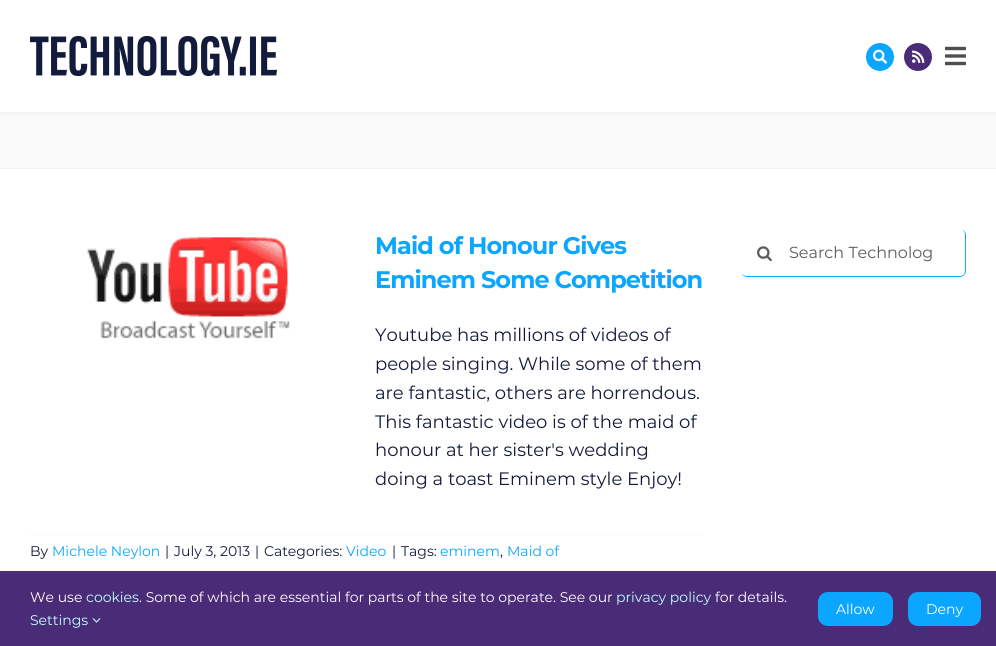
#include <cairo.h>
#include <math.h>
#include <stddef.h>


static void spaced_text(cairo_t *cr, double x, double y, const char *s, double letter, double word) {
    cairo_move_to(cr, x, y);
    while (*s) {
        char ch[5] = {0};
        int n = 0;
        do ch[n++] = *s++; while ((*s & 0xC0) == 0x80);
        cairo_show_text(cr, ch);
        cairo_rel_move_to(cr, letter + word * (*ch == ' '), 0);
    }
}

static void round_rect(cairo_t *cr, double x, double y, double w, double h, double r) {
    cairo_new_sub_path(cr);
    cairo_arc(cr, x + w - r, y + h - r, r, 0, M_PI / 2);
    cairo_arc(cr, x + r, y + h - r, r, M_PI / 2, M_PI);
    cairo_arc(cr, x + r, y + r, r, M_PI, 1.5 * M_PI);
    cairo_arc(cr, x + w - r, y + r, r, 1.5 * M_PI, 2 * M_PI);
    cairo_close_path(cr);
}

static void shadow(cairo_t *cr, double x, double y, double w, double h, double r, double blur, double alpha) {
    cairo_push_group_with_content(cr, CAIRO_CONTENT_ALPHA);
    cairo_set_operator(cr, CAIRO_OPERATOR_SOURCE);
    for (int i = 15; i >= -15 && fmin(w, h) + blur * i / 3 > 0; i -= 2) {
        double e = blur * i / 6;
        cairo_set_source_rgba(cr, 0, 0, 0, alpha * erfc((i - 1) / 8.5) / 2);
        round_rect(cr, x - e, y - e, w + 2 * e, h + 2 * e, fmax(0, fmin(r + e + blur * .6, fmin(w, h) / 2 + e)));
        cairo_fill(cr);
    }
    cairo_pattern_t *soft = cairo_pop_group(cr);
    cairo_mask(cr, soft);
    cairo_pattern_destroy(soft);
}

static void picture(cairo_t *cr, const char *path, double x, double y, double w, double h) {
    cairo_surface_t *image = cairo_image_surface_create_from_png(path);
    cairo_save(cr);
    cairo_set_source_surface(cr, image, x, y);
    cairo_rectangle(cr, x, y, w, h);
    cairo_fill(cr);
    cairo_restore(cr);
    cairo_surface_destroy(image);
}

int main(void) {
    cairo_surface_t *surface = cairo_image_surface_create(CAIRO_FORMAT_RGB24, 996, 646);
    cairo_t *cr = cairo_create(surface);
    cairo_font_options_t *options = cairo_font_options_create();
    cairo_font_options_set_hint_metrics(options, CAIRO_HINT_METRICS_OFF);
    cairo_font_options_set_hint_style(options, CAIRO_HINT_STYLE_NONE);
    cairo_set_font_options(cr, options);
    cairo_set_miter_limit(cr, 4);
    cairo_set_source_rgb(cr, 1, 1, 1);
    cairo_paint(cr);
    cairo_set_source_rgb(cr, 0.973, 0.976, 0.98);
    cairo_rectangle(cr, 0, 112, 996, 56);
    cairo_fill(cr);
    cairo_set_source_rgb(cr, 0.071, 0.106, 0.235);
    shadow(cr, 0, 0, 996, 112, 0, 1.5, 0.09);
    cairo_set_source_rgb(cr, 1, 1, 1);
    cairo_rectangle(cr, 0, 0, 996, 112);
    cairo_fill(cr);
    picture(cr, "img1.png", 30, 36, 247, 40);
    cairo_set_source_rgb(cr, 0.043, 0.651, 1);
    cairo_arc(cr, 880, 57, 14, 0, 2 * M_PI);
    cairo_fill(cr);
    picture(cr, "img2.png", 873, 49, 14, 15);
    cairo_set_source_rgb(cr, 0.29, 0.169, 0.471);
    cairo_arc(cr, 918, 57, 14, 0, 2 * M_PI);
    cairo_fill(cr);
    picture(cr, "img3.png", 912, 50, 13, 13);
    picture(cr, "img4.png", 945, 46, 21, 20);
    cairo_set_source_rgb(cr, 0.945, 0.949, 0.957);
    cairo_rectangle(cr, 0, 168, 996, 1);
    cairo_fill(cr);
    picture(cr, "img5.png", 87, 237, 203, 102);
    cairo_select_font_face(cr, "Montserrat", CAIRO_FONT_SLANT_NORMAL, CAIRO_FONT_WEIGHT_BOLD);
    cairo_set_font_size(cr, 24);
    cairo_set_source_rgb(cr, 0.043, 0.651, 1);
    spaced_text(cr, 375, 254, "Maid of Honour Gives", -0.9, 0);
    spaced_text(cr, 375, 288, "Eminem Some Competition", -0.9, 0);
    cairo_select_font_face(cr, "Montserrat", CAIRO_FONT_SLANT_NORMAL, CAIRO_FONT_WEIGHT_NORMAL);
    cairo_set_font_size(cr, 18);
    cairo_set_source_rgb(cr, 0.071, 0.106, 0.235);
    cairo_move_to(cr, 375, 341);
    cairo_show_text(cr, "Youtube has millions of videos of");
    cairo_move_to(cr, 375, 370);
    cairo_show_text(cr, "people singing. While some of them");
    cairo_move_to(cr, 375, 399);
    cairo_show_text(cr, "are fantastic, others are horrendous.");
    cairo_move_to(cr, 375, 428);
    cairo_show_text(cr, "This fantastic video is of the maid of");
    cairo_move_to(cr, 375, 456);
    cairo_show_text(cr, "honour at her sister's wedding");
    cairo_move_to(cr, 375, 485);
    cairo_show_text(cr, "doing a toast Eminem style Enjoy!");
    cairo_set_source_rgb(cr, 0.973, 0.973, 0.976);
    cairo_rectangle(cr, 30, 534, 673, 1);
    cairo_fill(cr);
    cairo_set_font_size(cr, 14);
    cairo_set_source_rgb(cr, 0.071, 0.106, 0.235);
    cairo_move_to(cr, 30, 556);
    cairo_show_text(cr, "By");
    cairo_set_source_rgb(cr, 0.043, 0.651, 1);
    cairo_move_to(cr, 52, 556);
    cairo_show_text(cr, "Michele Neylon");
    cairo_set_source_rgb(cr, 0.071, 0.106, 0.235);
    cairo_move_to(cr, 165, 556);
    cairo_show_text(cr, "|");
    cairo_move_to(cr, 174, 556);
    cairo_show_text(cr, "July 3, 2013");
    cairo_move_to(cr, 255, 556);
    cairo_show_text(cr, "|");
    cairo_move_to(cr, 264, 556);
    cairo_show_text(cr, "Categories:");
    cairo_set_source_rgb(cr, 0.043, 0.651, 1);
    cairo_move_to(cr, 346, 556);
    cairo_show_text(cr, "Video");
    cairo_set_source_rgb(cr, 0.071, 0.106, 0.235);
    cairo_move_to(cr, 392, 556);
    cairo_show_text(cr, "|");
    cairo_move_to(cr, 401, 556);
    cairo_show_text(cr, "Tags:");
    cairo_set_source_rgb(cr, 0.043, 0.651, 1);
    cairo_move_to(cr, 440, 556);
    cairo_show_text(cr, "eminem");
    cairo_set_source_rgb(cr, 0.071, 0.106, 0.235);
    cairo_move_to(cr, 500, 556);
    cairo_show_text(cr, ",");
    cairo_set_source_rgb(cr, 0.043, 0.651, 1);
    cairo_move_to(cr, 507, 556);
    cairo_show_text(cr, "Maid of");
    cairo_set_fill_rule(cr, CAIRO_FILL_RULE_EVEN_ODD);
    cairo_new_path(cr);
    cairo_move_to(cr, 747, 229);
    cairo_line_to(cr, 960, 229);
    cairo_curve_to(cr, 963, 229, 966, 232, 966, 235);
    cairo_line_to(cr, 966, 271);
    cairo_curve_to(cr, 966, 274, 963, 277, 960, 277);
    cairo_line_to(cr, 747, 277);
    cairo_curve_to(cr, 744, 277, 741, 274, 741, 271);
    cairo_line_to(cr, 741, 235);
    cairo_curve_to(cr, 741, 232, 744, 229, 747, 229);
    cairo_close_path(cr);
    cairo_move_to(cr, 747, 229);
    cairo_line_to(cr, 960, 229);
    cairo_curve_to(cr, 963, 229, 965, 232, 965, 235);
    cairo_line_to(cr, 965, 271);
    cairo_curve_to(cr, 965, 274, 963, 276, 960, 276);
    cairo_line_to(cr, 747, 276);
    cairo_curve_to(cr, 744, 276, 741, 274, 741, 271);
    cairo_line_to(cr, 741, 235);
    cairo_curve_to(cr, 741, 232, 744, 229, 747, 229);
    cairo_close_path(cr);
    cairo_fill(cr);
    picture(cr, "img6.png", 757, 246, 15, 16);
    cairo_set_font_size(cr, 16);
    cairo_set_source_rgb(cr, 0.353, 0.361, 0.369);
    cairo_move_to(cr, 789, 258);
    cairo_show_text(cr, "Search Technolog");
    cairo_set_source_rgb(cr, 0.29, 0.169, 0.471);
    cairo_rectangle(cr, 0, 571, 996, 75);
    cairo_fill(cr);
    cairo_set_font_size(cr, 14);
    cairo_set_source_rgb(cr, 1, 1, 1);
    cairo_move_to(cr, 30, 602);
    cairo_show_text(cr, "We use");
    cairo_set_source_rgb(cr, 0.761, 1, 1);
    cairo_move_to(cr, 86, 602);
    cairo_show_text(cr, "cookies");
    cairo_set_source_rgb(cr, 1, 1, 1);
    cairo_move_to(cr, 139, 602);
    cairo_show_text(cr, ". Some of which are essential for parts of the site to operate. See our");
    cairo_set_source_rgb(cr, 0.761, 1, 1);
    cairo_move_to(cr, 616, 602);
    cairo_show_text(cr, "privacy policy");
    cairo_set_source_rgb(cr, 1, 1, 1);
    cairo_move_to(cr, 715, 602);
    cairo_show_text(cr, "for details.");
    cairo_set_source_rgb(cr, 0.761, 1, 1);
    cairo_move_to(cr, 30, 625);
    cairo_show_text(cr, "Settings");
    picture(cr, "img7.png", 92, 618, 9, 5);
    cairo_set_source_rgb(cr, 0.043, 0.651, 1);
    round_rect(cr, 818, 592, 75, 34, 10);
    cairo_fill(cr);
    cairo_set_source_rgb(cr, 1, 1, 1);
    cairo_move_to(cr, 836, 614);
    cairo_show_text(cr, "Allow");
    cairo_set_source_rgb(cr, 0.043, 0.651, 1);
    round_rect(cr, 908, 592, 73, 34, 10);
    cairo_fill(cr);
    cairo_set_source_rgb(cr, 1, 1, 1);
    cairo_move_to(cr, 926, 614);
    cairo_show_text(cr, "Deny");
    cairo_surface_write_to_png(surface, "page.png");
    cairo_font_options_destroy(options);
    cairo_destroy(cr);
    cairo_surface_destroy(surface);
    return 0;
}
